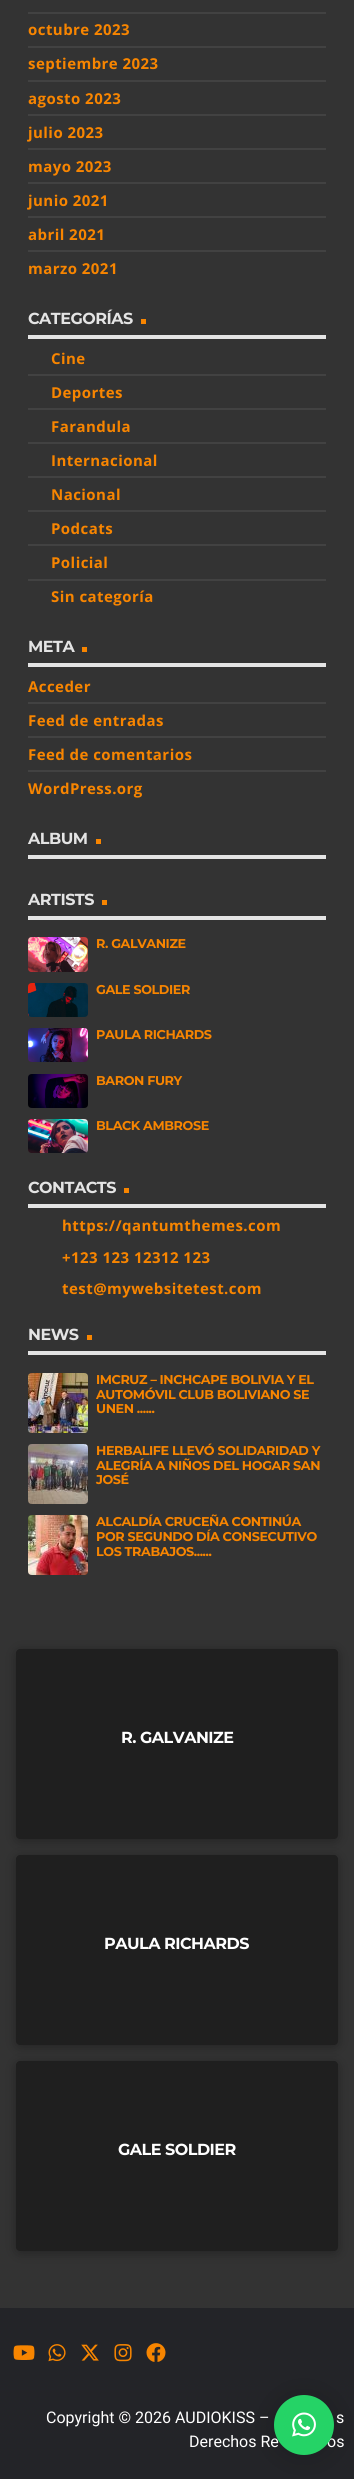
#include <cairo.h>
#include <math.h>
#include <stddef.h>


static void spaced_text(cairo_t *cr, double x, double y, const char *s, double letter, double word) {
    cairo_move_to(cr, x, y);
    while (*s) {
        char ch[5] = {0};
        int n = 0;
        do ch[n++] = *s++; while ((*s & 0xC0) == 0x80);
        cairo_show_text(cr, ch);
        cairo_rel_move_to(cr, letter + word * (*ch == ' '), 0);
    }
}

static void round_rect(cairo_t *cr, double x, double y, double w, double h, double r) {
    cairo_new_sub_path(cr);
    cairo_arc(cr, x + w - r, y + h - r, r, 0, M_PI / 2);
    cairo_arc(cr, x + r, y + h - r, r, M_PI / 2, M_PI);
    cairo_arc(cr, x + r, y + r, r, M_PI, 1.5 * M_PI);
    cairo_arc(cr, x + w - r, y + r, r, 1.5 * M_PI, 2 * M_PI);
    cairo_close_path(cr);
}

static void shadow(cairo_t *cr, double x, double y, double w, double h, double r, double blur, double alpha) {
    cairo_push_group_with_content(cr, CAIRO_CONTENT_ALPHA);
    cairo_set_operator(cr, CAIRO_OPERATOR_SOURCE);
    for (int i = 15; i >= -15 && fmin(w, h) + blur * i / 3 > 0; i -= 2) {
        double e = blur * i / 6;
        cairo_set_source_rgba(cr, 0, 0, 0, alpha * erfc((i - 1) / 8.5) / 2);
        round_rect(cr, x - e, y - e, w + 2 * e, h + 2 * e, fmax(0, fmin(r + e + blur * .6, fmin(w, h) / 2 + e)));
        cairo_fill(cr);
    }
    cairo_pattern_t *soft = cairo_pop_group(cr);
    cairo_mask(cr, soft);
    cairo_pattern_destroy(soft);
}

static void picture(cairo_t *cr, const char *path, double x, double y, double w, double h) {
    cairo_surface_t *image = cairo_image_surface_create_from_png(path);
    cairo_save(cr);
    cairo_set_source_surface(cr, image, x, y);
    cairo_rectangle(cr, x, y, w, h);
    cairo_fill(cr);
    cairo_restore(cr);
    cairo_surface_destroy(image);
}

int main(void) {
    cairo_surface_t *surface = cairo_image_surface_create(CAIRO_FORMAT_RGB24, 354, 2479);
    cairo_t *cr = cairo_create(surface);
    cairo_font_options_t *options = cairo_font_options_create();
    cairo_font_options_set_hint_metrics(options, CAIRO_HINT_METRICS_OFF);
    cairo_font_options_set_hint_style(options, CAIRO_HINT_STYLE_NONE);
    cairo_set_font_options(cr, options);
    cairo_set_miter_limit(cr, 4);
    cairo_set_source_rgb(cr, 0.2, 0.2, 0.2);
    cairo_paint(cr);
    cairo_set_source_rgb(cr, 0.259, 0.259, 0.259);
    cairo_rectangle(cr, 28, 12, 298, 2);
    cairo_fill(cr);
    cairo_rectangle(cr, 28, 46, 298, 2);
    cairo_fill(cr);
    cairo_select_font_face(cr, "Open Sans", CAIRO_FONT_SLANT_NORMAL, CAIRO_FONT_WEIGHT_BOLD);
    cairo_set_font_size(cr, 15);
    cairo_set_source_rgb(cr, 0.969, 0.522, 0);
    spaced_text(cr, 28, 35, "octubre 2023", 0.45, 0);
    cairo_set_source_rgb(cr, 0.259, 0.259, 0.259);
    cairo_rectangle(cr, 28, 80, 298, 2);
    cairo_fill(cr);
    cairo_set_source_rgb(cr, 0.969, 0.522, 0);
    spaced_text(cr, 28, 69, "septiembre 2023", 0.45, 0);
    cairo_set_source_rgb(cr, 0.259, 0.259, 0.259);
    cairo_rectangle(cr, 28, 114, 298, 2);
    cairo_fill(cr);
    cairo_set_source_rgb(cr, 0.969, 0.522, 0);
    spaced_text(cr, 28, 104, "agosto 2023", 0.45, 0);
    cairo_set_source_rgb(cr, 0.259, 0.259, 0.259);
    cairo_rectangle(cr, 28, 148, 298, 2);
    cairo_fill(cr);
    cairo_set_source_rgb(cr, 0.969, 0.522, 0);
    spaced_text(cr, 28, 138, "julio 2023", 0.45, 0);
    cairo_set_source_rgb(cr, 0.259, 0.259, 0.259);
    cairo_rectangle(cr, 28, 182, 298, 2);
    cairo_fill(cr);
    cairo_set_source_rgb(cr, 0.969, 0.522, 0);
    spaced_text(cr, 28, 172, "mayo 2023", 0.45, 0);
    cairo_set_source_rgb(cr, 0.259, 0.259, 0.259);
    cairo_rectangle(cr, 28, 216, 298, 2);
    cairo_fill(cr);
    cairo_set_source_rgb(cr, 0.969, 0.522, 0);
    spaced_text(cr, 28, 206, "junio 2021", 0.45, 0);
    cairo_set_source_rgb(cr, 0.259, 0.259, 0.259);
    cairo_rectangle(cr, 28, 250, 298, 2);
    cairo_fill(cr);
    cairo_set_source_rgb(cr, 0.969, 0.522, 0);
    spaced_text(cr, 28, 240, "abril 2021", 0.45, 0);
    spaced_text(cr, 28, 274, "marzo 2021", 0.45, 0);
    cairo_set_source_rgb(cr, 0.894, 0.894, 0.894);
    cairo_rectangle(cr, 28, 335, 298, 4);
    cairo_fill(cr);
    cairo_select_font_face(cr, "Montserrat", CAIRO_FONT_SLANT_NORMAL, CAIRO_FONT_WEIGHT_BOLD);
    cairo_set_font_size(cr, 16);
    spaced_text(cr, 28, 324, "CATEGORÍAS", -0.5, 0);
    cairo_set_source_rgb(cr, 0.969, 0.522, 0);
    cairo_rectangle(cr, 141, 319, 5, 5);
    cairo_fill(cr);
    cairo_set_source_rgb(cr, 0.259, 0.259, 0.259);
    cairo_rectangle(cr, 28, 374, 298, 2);
    cairo_fill(cr);
    cairo_select_font_face(cr, "Open Sans", CAIRO_FONT_SLANT_NORMAL, CAIRO_FONT_WEIGHT_BOLD);
    cairo_set_font_size(cr, 15);
    cairo_set_source_rgb(cr, 0.969, 0.522, 0);
    spaced_text(cr, 51, 364, "Cine", 0.45, 0);
    cairo_set_source_rgb(cr, 0.259, 0.259, 0.259);
    cairo_rectangle(cr, 28, 408, 298, 2);
    cairo_fill(cr);
    cairo_set_source_rgb(cr, 0.969, 0.522, 0);
    spaced_text(cr, 51, 398, "Deportes", 0.45, 0);
    cairo_set_source_rgb(cr, 0.259, 0.259, 0.259);
    cairo_rectangle(cr, 28, 442, 298, 2);
    cairo_fill(cr);
    cairo_set_source_rgb(cr, 0.969, 0.522, 0);
    spaced_text(cr, 51, 432, "Farandula", 0.45, 0);
    cairo_set_source_rgb(cr, 0.259, 0.259, 0.259);
    cairo_rectangle(cr, 28, 476, 298, 2);
    cairo_fill(cr);
    cairo_set_source_rgb(cr, 0.969, 0.522, 0);
    spaced_text(cr, 51, 466, "Internacional", 0.45, 0);
    cairo_set_source_rgb(cr, 0.259, 0.259, 0.259);
    cairo_rectangle(cr, 28, 510, 298, 2);
    cairo_fill(cr);
    cairo_set_source_rgb(cr, 0.969, 0.522, 0);
    spaced_text(cr, 51, 500, "Nacional", 0.45, 0);
    cairo_set_source_rgb(cr, 0.259, 0.259, 0.259);
    cairo_rectangle(cr, 28, 544, 298, 2);
    cairo_fill(cr);
    cairo_set_source_rgb(cr, 0.969, 0.522, 0);
    spaced_text(cr, 51, 534, "Podcats", 0.45, 0);
    cairo_set_source_rgb(cr, 0.259, 0.259, 0.259);
    cairo_rectangle(cr, 28, 579, 298, 2);
    cairo_fill(cr);
    cairo_set_source_rgb(cr, 0.969, 0.522, 0);
    spaced_text(cr, 51, 568, "Policial", 0.45, 0);
    spaced_text(cr, 51, 602, "Sin categoría", 0.45, 0);
    cairo_set_source_rgb(cr, 0.894, 0.894, 0.894);
    cairo_rectangle(cr, 28, 663, 298, 4);
    cairo_fill(cr);
    cairo_select_font_face(cr, "Montserrat", CAIRO_FONT_SLANT_NORMAL, CAIRO_FONT_WEIGHT_BOLD);
    cairo_set_font_size(cr, 16);
    spaced_text(cr, 28, 652, "META", -0.5, 0);
    cairo_set_source_rgb(cr, 0.969, 0.522, 0);
    cairo_rectangle(cr, 82, 647, 5, 5);
    cairo_fill(cr);
    cairo_set_source_rgb(cr, 0.259, 0.259, 0.259);
    cairo_rectangle(cr, 28, 702, 298, 2);
    cairo_fill(cr);
    cairo_select_font_face(cr, "Open Sans", CAIRO_FONT_SLANT_NORMAL, CAIRO_FONT_WEIGHT_BOLD);
    cairo_set_font_size(cr, 15);
    cairo_set_source_rgb(cr, 0.969, 0.522, 0);
    spaced_text(cr, 28, 692, "Acceder", 0.45, 0);
    cairo_set_source_rgb(cr, 0.259, 0.259, 0.259);
    cairo_rectangle(cr, 28, 736, 298, 2);
    cairo_fill(cr);
    cairo_set_source_rgb(cr, 0.969, 0.522, 0);
    spaced_text(cr, 28, 726, "Feed de entradas", 0.45, 0);
    cairo_set_source_rgb(cr, 0.259, 0.259, 0.259);
    cairo_rectangle(cr, 28, 770, 298, 2);
    cairo_fill(cr);
    cairo_set_source_rgb(cr, 0.969, 0.522, 0);
    spaced_text(cr, 28, 760, "Feed de comentarios", 0.45, 0);
    spaced_text(cr, 28, 794, "WordPress.org", 0.45, 0);
    cairo_set_source_rgb(cr, 0.894, 0.894, 0.894);
    cairo_rectangle(cr, 28, 855, 298, 4);
    cairo_fill(cr);
    cairo_select_font_face(cr, "Montserrat", CAIRO_FONT_SLANT_NORMAL, CAIRO_FONT_WEIGHT_BOLD);
    cairo_set_font_size(cr, 16);
    spaced_text(cr, 28, 844, "ALBUM", -0.5, 0);
    cairo_set_source_rgb(cr, 0.969, 0.522, 0);
    cairo_rectangle(cr, 96, 839, 5, 5);
    cairo_fill(cr);
    cairo_set_source_rgb(cr, 0.894, 0.894, 0.894);
    cairo_rectangle(cr, 28, 916, 298, 4);
    cairo_fill(cr);
    spaced_text(cr, 28, 905, "ARTISTS", -0.5, 0);
    cairo_set_source_rgb(cr, 0.969, 0.522, 0);
    cairo_rectangle(cr, 102, 900, 5, 5);
    cairo_fill(cr);
    picture(cr, "img1.png", 28, 937, 60, 35);
    cairo_set_font_size(cr, 12.75);
    spaced_text(cr, 96, 948, "R. GALVANIZE", -0.4, 0);
    picture(cr, "img2.png", 28, 983, 60, 34);
    spaced_text(cr, 96, 994, "GALE SOLDIER", -0.4, 0);
    picture(cr, "img3.png", 28, 1028, 60, 34);
    spaced_text(cr, 96, 1039, "PAULA RICHARDS", -0.4, 0);
    picture(cr, "img4.png", 28, 1074, 60, 34);
    spaced_text(cr, 96, 1085, "BARON FURY", -0.4, 0);
    picture(cr, "img5.png", 28, 1119, 60, 34);
    spaced_text(cr, 96, 1130, "BLACK AMBROSE", -0.4, 0);
    cairo_set_source_rgb(cr, 0.894, 0.894, 0.894);
    cairo_rectangle(cr, 28, 1204, 298, 4);
    cairo_fill(cr);
    cairo_set_font_size(cr, 16);
    spaced_text(cr, 28, 1193, "CONTACTS", -0.5, 0);
    cairo_set_source_rgb(cr, 0.969, 0.522, 0);
    cairo_rectangle(cr, 124, 1188, 5, 5);
    cairo_fill(cr);
    cairo_select_font_face(cr, "Open Sans", CAIRO_FONT_SLANT_NORMAL, CAIRO_FONT_WEIGHT_BOLD);
    cairo_set_font_size(cr, 15);
    spaced_text(cr, 62, 1231, "https://qantumthemes.com", 0.45, 0);
    spaced_text(cr, 62, 1263, "+123 123 12312 123", 0.45, 0);
    spaced_text(cr, 62, 1294, "test@mywebsitetest.com", 0.45, 0);
    cairo_set_source_rgb(cr, 0.894, 0.894, 0.894);
    cairo_rectangle(cr, 28, 1351, 298, 4);
    cairo_fill(cr);
    cairo_select_font_face(cr, "Montserrat", CAIRO_FONT_SLANT_NORMAL, CAIRO_FONT_WEIGHT_BOLD);
    cairo_set_font_size(cr, 16);
    spaced_text(cr, 28, 1340, "NEWS", -0.5, 0);
    cairo_set_source_rgb(cr, 0.969, 0.522, 0);
    cairo_rectangle(cr, 87, 1335, 5, 5);
    cairo_fill(cr);
    picture(cr, "img6.png", 28, 1373, 60, 60);
    cairo_set_font_size(cr, 12.75);
    spaced_text(cr, 96, 1384, "IMCRUZ – INCHCAPE BOLIVIA Y EL", -0.4, 0);
    spaced_text(cr, 96, 1399, "AUTOMÓVIL CLUB BOLIVIANO SE", -0.4, 0);
    spaced_text(cr, 96, 1413, "UNEN ......", -0.4, 0);
    picture(cr, "img7.png", 28, 1444, 60, 60);
    spaced_text(cr, 96, 1455, "HERBALIFE LLEVÓ SOLIDARIDAD Y", -0.4, 0);
    spaced_text(cr, 96, 1470, "ALEGRÍA A NIÑOS DEL HOGAR SAN", -0.4, 0);
    spaced_text(cr, 96, 1484, "JOSÉ", -0.4, 0);
    picture(cr, "img8.png", 28, 1515, 60, 60);
    spaced_text(cr, 96, 1526, "ALCALDÍA CRUCEÑA CONTINÚA", -0.4, 0);
    spaced_text(cr, 96, 1541, "POR SEGUNDO DÍA CONSECUTIVO", -0.4, 0);
    spaced_text(cr, 96, 1556, "LOS TRABAJOS......", -0.4, 0);
    cairo_set_source_rgb(cr, 0, 0, 0);
    shadow(cr, 16, 1651, 322, 190, 4, 6, 0.3);
    cairo_set_source_rgb(cr, 0.122, 0.122, 0.122);
    round_rect(cr, 16, 1649, 322, 190, 4);
    cairo_fill(cr);
    cairo_set_font_size(cr, 16);
    cairo_set_source_rgb(cr, 1, 1, 1);
    spaced_text(cr, 121, 1743, "R. GALVANIZE", -0.5, 0);
    cairo_set_source_rgb(cr, 0, 0, 0);
    shadow(cr, 16, 1857, 322, 190, 4, 6, 0.3);
    cairo_set_source_rgb(cr, 0.122, 0.122, 0.122);
    round_rect(cr, 16, 1855, 322, 190, 4);
    cairo_fill(cr);
    cairo_set_source_rgb(cr, 1, 1, 1);
    spaced_text(cr, 104, 1949, "PAULA RICHARDS", -0.5, 0);
    cairo_set_source_rgb(cr, 0, 0, 0);
    shadow(cr, 16, 2063, 322, 190, 4, 6, 0.3);
    cairo_set_source_rgb(cr, 0.122, 0.122, 0.122);
    round_rect(cr, 16, 2061, 322, 190, 4);
    cairo_fill(cr);
    cairo_set_source_rgb(cr, 1, 1, 1);
    spaced_text(cr, 118, 2155, "GALE SOLDIER", -0.5, 0);
    cairo_set_source_rgb(cr, 0.137, 0.141, 0.157);
    cairo_rectangle(cr, 0, 2308, 354, 171);
    cairo_fill(cr);
    cairo_set_source_rgb(cr, 0, 0, 0);
    shadow(cr, 274, 2397, 60, 60, 30, 16, 0.16);
    cairo_select_font_face(cr, "Roboto", CAIRO_FONT_SLANT_NORMAL, CAIRO_FONT_WEIGHT_NORMAL);
    cairo_set_source_rgb(cr, 1, 1, 1);
    cairo_move_to(cr, 189, 2447);
    cairo_show_text(cr, "Derechos Re");
    cairo_move_to(cr, 327, 2447);
    cairo_show_text(cr, "os");
    cairo_set_source_rgb(cr, 0.145, 0.827, 0.4);
    cairo_new_path(cr);
    cairo_arc(cr, 304, 2425, 30, 0, 2 * M_PI);
    cairo_fill(cr);
    picture(cr, "img9.png", 292, 2412, 24, 25);
    picture(cr, "img10.png", 13, 2345, 22, 15);
    picture(cr, "img11.png", 48, 2344, 18, 18);
    picture(cr, "img12.png", 81, 2344, 18, 17);
    picture(cr, "img13.png", 114, 2344, 18, 18);
    picture(cr, "img14.png", 146, 2343, 20, 19);
    cairo_set_source_rgb(cr, 1, 1, 1);
    cairo_move_to(cr, 46, 2423);
    cairo_show_text(cr, "Copyright © 2026 AUDIOKISS –");
    cairo_move_to(cr, 336, 2423);
    cairo_show_text(cr, "s");
    cairo_surface_write_to_png(surface, "page.png");
    cairo_font_options_destroy(options);
    cairo_destroy(cr);
    cairo_surface_destroy(surface);
    return 0;
}
